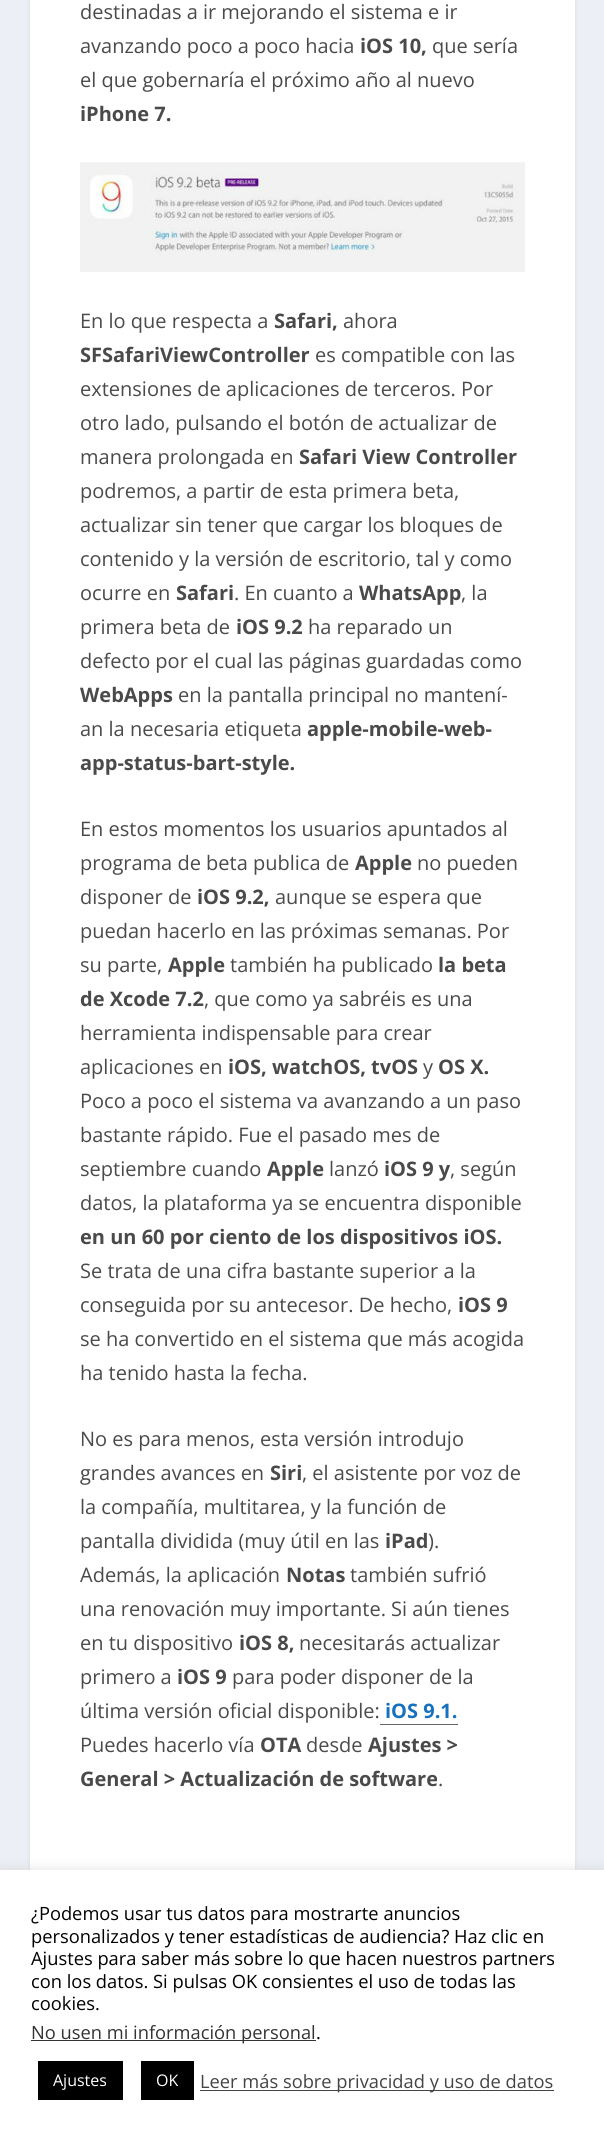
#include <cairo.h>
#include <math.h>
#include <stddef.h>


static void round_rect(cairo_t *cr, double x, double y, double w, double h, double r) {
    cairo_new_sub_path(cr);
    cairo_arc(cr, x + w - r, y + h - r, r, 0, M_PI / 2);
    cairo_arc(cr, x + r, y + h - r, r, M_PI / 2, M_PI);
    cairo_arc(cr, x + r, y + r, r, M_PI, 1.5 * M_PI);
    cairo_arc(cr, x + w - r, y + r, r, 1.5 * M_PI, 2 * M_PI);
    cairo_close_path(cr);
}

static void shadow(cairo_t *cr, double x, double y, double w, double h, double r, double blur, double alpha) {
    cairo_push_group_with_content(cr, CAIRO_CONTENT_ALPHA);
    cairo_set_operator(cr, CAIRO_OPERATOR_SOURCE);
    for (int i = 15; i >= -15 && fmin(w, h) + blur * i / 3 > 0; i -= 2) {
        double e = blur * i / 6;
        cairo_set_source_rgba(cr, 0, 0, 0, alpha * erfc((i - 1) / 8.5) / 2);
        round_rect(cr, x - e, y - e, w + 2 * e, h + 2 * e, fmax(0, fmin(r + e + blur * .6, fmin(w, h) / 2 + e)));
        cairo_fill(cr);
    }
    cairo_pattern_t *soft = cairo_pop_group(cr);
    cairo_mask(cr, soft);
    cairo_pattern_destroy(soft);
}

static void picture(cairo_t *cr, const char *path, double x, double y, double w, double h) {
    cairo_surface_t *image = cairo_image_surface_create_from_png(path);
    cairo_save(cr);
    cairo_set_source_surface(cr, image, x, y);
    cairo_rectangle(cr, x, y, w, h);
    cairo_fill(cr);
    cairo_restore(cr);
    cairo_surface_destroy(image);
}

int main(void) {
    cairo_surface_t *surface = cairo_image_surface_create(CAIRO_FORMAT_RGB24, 604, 2137);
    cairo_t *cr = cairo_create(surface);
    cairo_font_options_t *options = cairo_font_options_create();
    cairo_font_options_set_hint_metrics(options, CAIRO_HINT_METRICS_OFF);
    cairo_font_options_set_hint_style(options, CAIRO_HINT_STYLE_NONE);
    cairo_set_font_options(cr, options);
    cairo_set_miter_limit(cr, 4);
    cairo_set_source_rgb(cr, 0.925, 0.941, 0.961);
    cairo_paint(cr);
    cairo_set_source_rgb(cr, 0, 0, 0);
    shadow(cr, 30, -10, 545, 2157, 4, 2, 0.1);
    cairo_set_source_rgb(cr, 1, 1, 1);
    cairo_rectangle(cr, 30, 0, 545, 1870);
    cairo_fill(cr);
    cairo_select_font_face(cr, "Open Sans", CAIRO_FONT_SLANT_NORMAL, CAIRO_FONT_WEIGHT_NORMAL);
    cairo_set_font_size(cr, 20);
    cairo_set_source_rgb(cr, 0.29, 0.29, 0.29);
    cairo_move_to(cr, 80, 19);
    cairo_show_text(cr, "destinadas a ir mejorando el sistema e ir");
    cairo_move_to(cr, 80, 53);
    cairo_show_text(cr, "avanzando poco a poco hacia");
    cairo_select_font_face(cr, "Open Sans", CAIRO_FONT_SLANT_NORMAL, CAIRO_FONT_WEIGHT_BOLD);
    cairo_move_to(cr, 360, 53);
    cairo_show_text(cr, "iOS 10,");
    cairo_select_font_face(cr, "Open Sans", CAIRO_FONT_SLANT_NORMAL, CAIRO_FONT_WEIGHT_NORMAL);
    cairo_move_to(cr, 432, 53);
    cairo_show_text(cr, "que sería");
    cairo_move_to(cr, 80, 87);
    cairo_show_text(cr, "el que gobernaría el próximo año al nuevo");
    cairo_select_font_face(cr, "Open Sans", CAIRO_FONT_SLANT_NORMAL, CAIRO_FONT_WEIGHT_BOLD);
    cairo_move_to(cr, 80, 121);
    cairo_show_text(cr, "iPhone 7.");
    picture(cr, "img1.png", 80, 162, 445, 110);
    cairo_select_font_face(cr, "Open Sans", CAIRO_FONT_SLANT_NORMAL, CAIRO_FONT_WEIGHT_NORMAL);
    cairo_move_to(cr, 80, 328);
    cairo_show_text(cr, "En lo que respecta a");
    cairo_select_font_face(cr, "Open Sans", CAIRO_FONT_SLANT_NORMAL, CAIRO_FONT_WEIGHT_BOLD);
    cairo_move_to(cr, 274, 328);
    cairo_show_text(cr, "Safari,");
    cairo_select_font_face(cr, "Open Sans", CAIRO_FONT_SLANT_NORMAL, CAIRO_FONT_WEIGHT_NORMAL);
    cairo_move_to(cr, 343, 328);
    cairo_show_text(cr, "ahora");
    cairo_select_font_face(cr, "Open Sans", CAIRO_FONT_SLANT_NORMAL, CAIRO_FONT_WEIGHT_BOLD);
    cairo_move_to(cr, 80, 362);
    cairo_show_text(cr, "SFSafariViewController");
    cairo_select_font_face(cr, "Open Sans", CAIRO_FONT_SLANT_NORMAL, CAIRO_FONT_WEIGHT_NORMAL);
    cairo_move_to(cr, 315, 362);
    cairo_show_text(cr, "es compatible con las");
    cairo_move_to(cr, 80, 396);
    cairo_show_text(cr, "extensiones de aplicaciones de terceros. Por");
    cairo_move_to(cr, 80, 430);
    cairo_show_text(cr, "otro lado, pulsando el botón de actualizar de");
    cairo_move_to(cr, 80, 464);
    cairo_show_text(cr, "manera prolongada en");
    cairo_select_font_face(cr, "Open Sans", CAIRO_FONT_SLANT_NORMAL, CAIRO_FONT_WEIGHT_BOLD);
    cairo_move_to(cr, 299, 464);
    cairo_show_text(cr, "Safari View Controller");
    cairo_select_font_face(cr, "Open Sans", CAIRO_FONT_SLANT_NORMAL, CAIRO_FONT_WEIGHT_NORMAL);
    cairo_move_to(cr, 80, 498);
    cairo_show_text(cr, "podremos, a partir de esta primera beta,");
    cairo_move_to(cr, 80, 532);
    cairo_show_text(cr, "actualizar sin tener que cargar los bloques de");
    cairo_move_to(cr, 80, 566);
    cairo_show_text(cr, "contenido y la versión de escritorio, tal y como");
    cairo_move_to(cr, 80, 600);
    cairo_show_text(cr, "ocurre en");
    cairo_select_font_face(cr, "Open Sans", CAIRO_FONT_SLANT_NORMAL, CAIRO_FONT_WEIGHT_BOLD);
    cairo_move_to(cr, 176, 600);
    cairo_show_text(cr, "Safari");
    cairo_select_font_face(cr, "Open Sans", CAIRO_FONT_SLANT_NORMAL, CAIRO_FONT_WEIGHT_NORMAL);
    cairo_move_to(cr, 234, 600);
    cairo_show_text(cr, ". En cuanto a");
    cairo_select_font_face(cr, "Open Sans", CAIRO_FONT_SLANT_NORMAL, CAIRO_FONT_WEIGHT_BOLD);
    cairo_move_to(cr, 359, 600);
    cairo_show_text(cr, "WhatsApp");
    cairo_select_font_face(cr, "Open Sans", CAIRO_FONT_SLANT_NORMAL, CAIRO_FONT_WEIGHT_NORMAL);
    cairo_move_to(cr, 461, 600);
    cairo_show_text(cr, ", la");
    cairo_move_to(cr, 80, 634);
    cairo_show_text(cr, "primera beta de");
    cairo_select_font_face(cr, "Open Sans", CAIRO_FONT_SLANT_NORMAL, CAIRO_FONT_WEIGHT_BOLD);
    cairo_move_to(cr, 236, 634);
    cairo_show_text(cr, "iOS 9.2");
    cairo_select_font_face(cr, "Open Sans", CAIRO_FONT_SLANT_NORMAL, CAIRO_FONT_WEIGHT_NORMAL);
    cairo_move_to(cr, 308, 634);
    cairo_show_text(cr, "ha reparado un");
    cairo_move_to(cr, 80, 668);
    cairo_show_text(cr, "defecto por el cual las páginas guardadas como");
    cairo_select_font_face(cr, "Open Sans", CAIRO_FONT_SLANT_NORMAL, CAIRO_FONT_WEIGHT_BOLD);
    cairo_move_to(cr, 80, 702);
    cairo_show_text(cr, "WebApps");
    cairo_select_font_face(cr, "Open Sans", CAIRO_FONT_SLANT_NORMAL, CAIRO_FONT_WEIGHT_NORMAL);
    cairo_move_to(cr, 178, 702);
    cairo_show_text(cr, "en la pantalla principal no mantení-");
    cairo_move_to(cr, 80, 736);
    cairo_show_text(cr, "an la necesaria etiqueta");
    cairo_select_font_face(cr, "Open Sans", CAIRO_FONT_SLANT_NORMAL, CAIRO_FONT_WEIGHT_BOLD);
    cairo_move_to(cr, 307, 736);
    cairo_show_text(cr, "apple-mobile-web-");
    cairo_move_to(cr, 80, 770);
    cairo_show_text(cr, "app-status-bart-style.");
    cairo_select_font_face(cr, "Open Sans", CAIRO_FONT_SLANT_NORMAL, CAIRO_FONT_WEIGHT_NORMAL);
    cairo_move_to(cr, 80, 836);
    cairo_show_text(cr, "En estos momentos los usuarios apuntados al");
    cairo_move_to(cr, 80, 870);
    cairo_show_text(cr, "programa de beta publica de");
    cairo_select_font_face(cr, "Open Sans", CAIRO_FONT_SLANT_NORMAL, CAIRO_FONT_WEIGHT_BOLD);
    cairo_move_to(cr, 355, 870);
    cairo_show_text(cr, "Apple");
    cairo_select_font_face(cr, "Open Sans", CAIRO_FONT_SLANT_NORMAL, CAIRO_FONT_WEIGHT_NORMAL);
    cairo_move_to(cr, 417, 870);
    cairo_show_text(cr, "no pueden");
    cairo_move_to(cr, 80, 904);
    cairo_show_text(cr, "disponer de");
    cairo_select_font_face(cr, "Open Sans", CAIRO_FONT_SLANT_NORMAL, CAIRO_FONT_WEIGHT_BOLD);
    cairo_move_to(cr, 197, 904);
    cairo_show_text(cr, "iOS 9.2,");
    cairo_select_font_face(cr, "Open Sans", CAIRO_FONT_SLANT_NORMAL, CAIRO_FONT_WEIGHT_NORMAL);
    cairo_move_to(cr, 275, 904);
    cairo_show_text(cr, "aunque se espera que");
    cairo_move_to(cr, 80, 938);
    cairo_show_text(cr, "puedan hacerlo en las próximas semanas. Por");
    cairo_move_to(cr, 80, 972);
    cairo_show_text(cr, "su parte,");
    cairo_select_font_face(cr, "Open Sans", CAIRO_FONT_SLANT_NORMAL, CAIRO_FONT_WEIGHT_BOLD);
    cairo_move_to(cr, 168, 972);
    cairo_show_text(cr, "Apple");
    cairo_select_font_face(cr, "Open Sans", CAIRO_FONT_SLANT_NORMAL, CAIRO_FONT_WEIGHT_NORMAL);
    cairo_move_to(cr, 230, 972);
    cairo_show_text(cr, "también ha publicado");
    cairo_select_font_face(cr, "Open Sans", CAIRO_FONT_SLANT_NORMAL, CAIRO_FONT_WEIGHT_BOLD);
    cairo_move_to(cr, 438, 972);
    cairo_show_text(cr, "la beta");
    cairo_move_to(cr, 80, 1006);
    cairo_show_text(cr, "de Xcode 7.2");
    cairo_select_font_face(cr, "Open Sans", CAIRO_FONT_SLANT_NORMAL, CAIRO_FONT_WEIGHT_NORMAL);
    cairo_move_to(cr, 204, 1006);
    cairo_show_text(cr, ", que como ya sabréis es una");
    cairo_move_to(cr, 80, 1040);
    cairo_show_text(cr, "herramienta indispensable para crear");
    cairo_move_to(cr, 80, 1074);
    cairo_show_text(cr, "aplicaciones en");
    cairo_select_font_face(cr, "Open Sans", CAIRO_FONT_SLANT_NORMAL, CAIRO_FONT_WEIGHT_BOLD);
    cairo_move_to(cr, 228, 1074);
    cairo_show_text(cr, "iOS, watchOS, tvOS");
    cairo_select_font_face(cr, "Open Sans", CAIRO_FONT_SLANT_NORMAL, CAIRO_FONT_WEIGHT_NORMAL);
    cairo_move_to(cr, 423, 1074);
    cairo_show_text(cr, "y");
    cairo_select_font_face(cr, "Open Sans", CAIRO_FONT_SLANT_NORMAL, CAIRO_FONT_WEIGHT_BOLD);
    cairo_move_to(cr, 438, 1074);
    cairo_show_text(cr, "OS X.");
    cairo_select_font_face(cr, "Open Sans", CAIRO_FONT_SLANT_NORMAL, CAIRO_FONT_WEIGHT_NORMAL);
    cairo_move_to(cr, 80, 1108);
    cairo_show_text(cr, "Poco a poco el sistema va avanzando a un paso");
    cairo_move_to(cr, 80, 1142);
    cairo_show_text(cr, "bastante rápido. Fue el pasado mes de");
    cairo_move_to(cr, 80, 1176);
    cairo_show_text(cr, "septiembre cuando");
    cairo_select_font_face(cr, "Open Sans", CAIRO_FONT_SLANT_NORMAL, CAIRO_FONT_WEIGHT_BOLD);
    cairo_move_to(cr, 267, 1176);
    cairo_show_text(cr, "Apple");
    cairo_select_font_face(cr, "Open Sans", CAIRO_FONT_SLANT_NORMAL, CAIRO_FONT_WEIGHT_NORMAL);
    cairo_move_to(cr, 329, 1176);
    cairo_show_text(cr, "lanzó");
    cairo_select_font_face(cr, "Open Sans", CAIRO_FONT_SLANT_NORMAL, CAIRO_FONT_WEIGHT_BOLD);
    cairo_move_to(cr, 384, 1176);
    cairo_show_text(cr, "iOS 9 y");
    cairo_select_font_face(cr, "Open Sans", CAIRO_FONT_SLANT_NORMAL, CAIRO_FONT_WEIGHT_NORMAL);
    cairo_move_to(cr, 450, 1176);
    cairo_show_text(cr, ", según");
    cairo_move_to(cr, 80, 1210);
    cairo_show_text(cr, "datos, la plataforma ya se encuentra disponible");
    cairo_select_font_face(cr, "Open Sans", CAIRO_FONT_SLANT_NORMAL, CAIRO_FONT_WEIGHT_BOLD);
    cairo_move_to(cr, 80, 1244);
    cairo_show_text(cr, "en un 60 por ciento de los dispositivos iOS.");
    cairo_select_font_face(cr, "Open Sans", CAIRO_FONT_SLANT_NORMAL, CAIRO_FONT_WEIGHT_NORMAL);
    cairo_move_to(cr, 80, 1278);
    cairo_show_text(cr, "Se trata de una cifra bastante superior a la");
    cairo_move_to(cr, 80, 1312);
    cairo_show_text(cr, "conseguida por su antecesor. De hecho,");
    cairo_select_font_face(cr, "Open Sans", CAIRO_FONT_SLANT_NORMAL, CAIRO_FONT_WEIGHT_BOLD);
    cairo_move_to(cr, 458, 1312);
    cairo_show_text(cr, "iOS 9");
    cairo_select_font_face(cr, "Open Sans", CAIRO_FONT_SLANT_NORMAL, CAIRO_FONT_WEIGHT_NORMAL);
    cairo_move_to(cr, 80, 1346);
    cairo_show_text(cr, "se ha convertido en el sistema que más acogida");
    cairo_move_to(cr, 80, 1380);
    cairo_show_text(cr, "ha tenido hasta la fecha.");
    cairo_move_to(cr, 80, 1446);
    cairo_show_text(cr, "No es para menos, esta versión introdujo");
    cairo_move_to(cr, 80, 1480);
    cairo_show_text(cr, "grandes avances en");
    cairo_select_font_face(cr, "Open Sans", CAIRO_FONT_SLANT_NORMAL, CAIRO_FONT_WEIGHT_BOLD);
    cairo_move_to(cr, 270, 1480);
    cairo_show_text(cr, "Siri");
    cairo_select_font_face(cr, "Open Sans", CAIRO_FONT_SLANT_NORMAL, CAIRO_FONT_WEIGHT_NORMAL);
    cairo_move_to(cr, 302, 1480);
    cairo_show_text(cr, ", el asistente por voz de");
    cairo_move_to(cr, 80, 1514);
    cairo_show_text(cr, "la compañía, multitarea, y la función de");
    cairo_move_to(cr, 80, 1548);
    cairo_show_text(cr, "pantalla dividida (muy útil en las");
    cairo_select_font_face(cr, "Open Sans", CAIRO_FONT_SLANT_NORMAL, CAIRO_FONT_WEIGHT_BOLD);
    cairo_move_to(cr, 385, 1548);
    cairo_show_text(cr, "iPad");
    cairo_select_font_face(cr, "Open Sans", CAIRO_FONT_SLANT_NORMAL, CAIRO_FONT_WEIGHT_NORMAL);
    cairo_move_to(cr, 428, 1548);
    cairo_show_text(cr, ").");
    cairo_move_to(cr, 80, 1582);
    cairo_show_text(cr, "Además, la aplicación");
    cairo_select_font_face(cr, "Open Sans", CAIRO_FONT_SLANT_NORMAL, CAIRO_FONT_WEIGHT_BOLD);
    cairo_move_to(cr, 286, 1582);
    cairo_show_text(cr, "Notas");
    cairo_select_font_face(cr, "Open Sans", CAIRO_FONT_SLANT_NORMAL, CAIRO_FONT_WEIGHT_NORMAL);
    cairo_move_to(cr, 350, 1582);
    cairo_show_text(cr, "también sufrió");
    cairo_move_to(cr, 80, 1616);
    cairo_show_text(cr, "una renovación muy importante. Si aún tienes");
    cairo_move_to(cr, 80, 1650);
    cairo_show_text(cr, "en tu dispositivo");
    cairo_select_font_face(cr, "Open Sans", CAIRO_FONT_SLANT_NORMAL, CAIRO_FONT_WEIGHT_BOLD);
    cairo_move_to(cr, 239, 1650);
    cairo_show_text(cr, "iOS 8,");
    cairo_select_font_face(cr, "Open Sans", CAIRO_FONT_SLANT_NORMAL, CAIRO_FONT_WEIGHT_NORMAL);
    cairo_move_to(cr, 299, 1650);
    cairo_show_text(cr, "necesitarás actualizar");
    cairo_move_to(cr, 80, 1684);
    cairo_show_text(cr, "primero a");
    cairo_select_font_face(cr, "Open Sans", CAIRO_FONT_SLANT_NORMAL, CAIRO_FONT_WEIGHT_BOLD);
    cairo_move_to(cr, 177, 1684);
    cairo_show_text(cr, "iOS 9");
    cairo_select_font_face(cr, "Open Sans", CAIRO_FONT_SLANT_NORMAL, CAIRO_FONT_WEIGHT_NORMAL);
    cairo_move_to(cr, 232, 1684);
    cairo_show_text(cr, "para poder disponer de la");
    cairo_move_to(cr, 80, 1718);
    cairo_show_text(cr, "última versión oficial disponible:");
    cairo_select_font_face(cr, "Open Sans", CAIRO_FONT_SLANT_NORMAL, CAIRO_FONT_WEIGHT_BOLD);
    cairo_set_source_rgb(cr, 0.094, 0.443, 0.749);
    cairo_move_to(cr, 385, 1718);
    cairo_show_text(cr, "iOS 9.1.");
    cairo_set_source_rgb(cr, 0.4, 0.4, 0.4);
    cairo_rectangle(cr, 380, 1724, 78, 1);
    cairo_fill(cr);
    cairo_select_font_face(cr, "Open Sans", CAIRO_FONT_SLANT_NORMAL, CAIRO_FONT_WEIGHT_NORMAL);
    cairo_set_source_rgb(cr, 0.29, 0.29, 0.29);
    cairo_move_to(cr, 80, 1752);
    cairo_show_text(cr, "Puedes hacerlo vía");
    cairo_select_font_face(cr, "Open Sans", CAIRO_FONT_SLANT_NORMAL, CAIRO_FONT_WEIGHT_BOLD);
    cairo_move_to(cr, 260, 1752);
    cairo_show_text(cr, "OTA");
    cairo_select_font_face(cr, "Open Sans", CAIRO_FONT_SLANT_NORMAL, CAIRO_FONT_WEIGHT_NORMAL);
    cairo_move_to(cr, 306, 1752);
    cairo_show_text(cr, "desde");
    cairo_select_font_face(cr, "Open Sans", CAIRO_FONT_SLANT_NORMAL, CAIRO_FONT_WEIGHT_BOLD);
    cairo_move_to(cr, 368, 1752);
    cairo_show_text(cr, "Ajustes >");
    cairo_move_to(cr, 80, 1786);
    cairo_show_text(cr, "General > Actualización de software");
    cairo_select_font_face(cr, "Open Sans", CAIRO_FONT_SLANT_NORMAL, CAIRO_FONT_WEIGHT_NORMAL);
    cairo_move_to(cr, 438, 1786);
    cairo_show_text(cr, ".");
    cairo_set_source_rgb(cr, 0.675, 0.671, 0.671);
    shadow(cr, 0, 1869, 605, 267, 0, 6, 0.3);
    cairo_set_source_rgb(cr, 1, 1, 1);
    cairo_rectangle(cr, 0, 1870, 604, 267);
    cairo_fill(cr);
    cairo_set_font_size(cr, 18.3);
    cairo_set_source_rgb(cr, 0, 0, 0);
    cairo_move_to(cr, 31, 1920);
    cairo_show_text(cr, "¿Podemos usar tus datos para mostrarte anuncios");
    cairo_move_to(cr, 31, 1943);
    cairo_show_text(cr, "personalizados y tener estadísticas de audiencia? Haz clic en");
    cairo_move_to(cr, 31, 1965);
    cairo_show_text(cr, "Ajustes para saber más sobre lo que hacen nuestros partners");
    cairo_move_to(cr, 31, 1988);
    cairo_show_text(cr, "con los datos. Si pulsas OK consientes el uso de todas las");
    cairo_move_to(cr, 31, 2010);
    cairo_show_text(cr, "cookies.");
    cairo_set_source_rgb(cr, 0.2, 0.2, 0.2);
    cairo_rectangle(cr, 31, 2040, 285, 1);
    cairo_fill(cr);
    cairo_move_to(cr, 31, 2039);
    cairo_show_text(cr, "No usen mi información personal");
    cairo_set_source_rgb(cr, 0, 0, 0);
    cairo_move_to(cr, 316, 2039);
    cairo_show_text(cr, ".");
    cairo_rectangle(cr, 38, 2061, 85, 39);
    cairo_fill(cr);
    cairo_set_font_size(cr, 16);
    cairo_set_source_rgb(cr, 1, 1, 1);
    cairo_move_to(cr, 53, 2086);
    cairo_show_text(cr, "Ajustes");
    cairo_set_source_rgb(cr, 0, 0, 0);
    cairo_rectangle(cr, 141, 2061, 53, 39);
    cairo_fill(cr);
    cairo_set_source_rgb(cr, 1, 1, 1);
    cairo_move_to(cr, 156, 2086);
    cairo_show_text(cr, "OK");
    cairo_set_source_rgb(cr, 0.267, 0.267, 0.267);
    cairo_rectangle(cr, 200, 2090, 354, 1);
    cairo_fill(cr);
    cairo_set_font_size(cr, 18.3);
    cairo_move_to(cr, 200, 2088);
    cairo_show_text(cr, "Leer más sobre privacidad y uso de datos");
    cairo_surface_write_to_png(surface, "page.png");
    cairo_font_options_destroy(options);
    cairo_destroy(cr);
    cairo_surface_destroy(surface);
    return 0;
}
